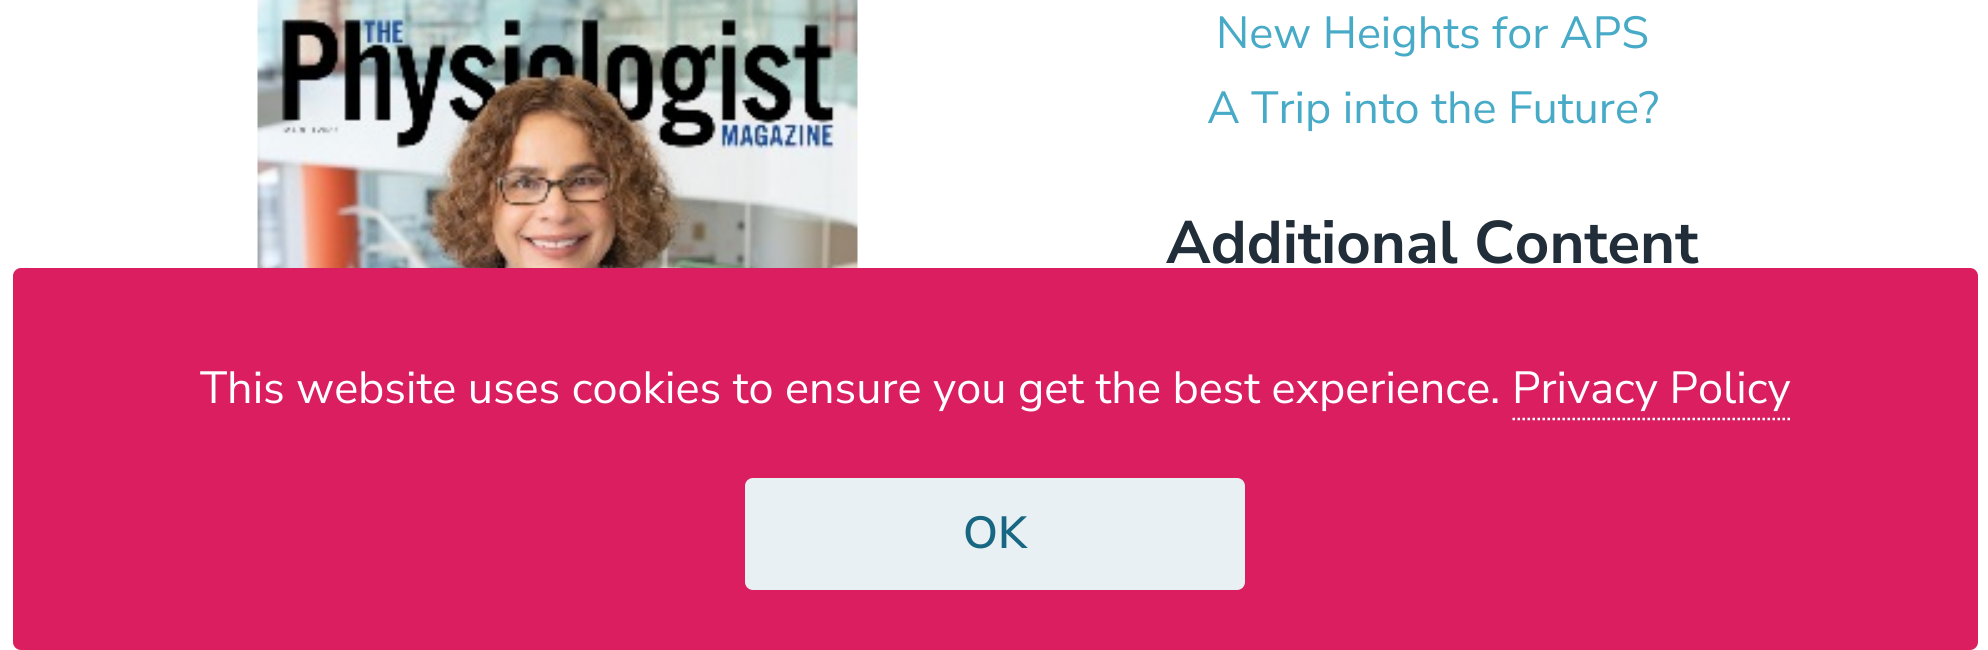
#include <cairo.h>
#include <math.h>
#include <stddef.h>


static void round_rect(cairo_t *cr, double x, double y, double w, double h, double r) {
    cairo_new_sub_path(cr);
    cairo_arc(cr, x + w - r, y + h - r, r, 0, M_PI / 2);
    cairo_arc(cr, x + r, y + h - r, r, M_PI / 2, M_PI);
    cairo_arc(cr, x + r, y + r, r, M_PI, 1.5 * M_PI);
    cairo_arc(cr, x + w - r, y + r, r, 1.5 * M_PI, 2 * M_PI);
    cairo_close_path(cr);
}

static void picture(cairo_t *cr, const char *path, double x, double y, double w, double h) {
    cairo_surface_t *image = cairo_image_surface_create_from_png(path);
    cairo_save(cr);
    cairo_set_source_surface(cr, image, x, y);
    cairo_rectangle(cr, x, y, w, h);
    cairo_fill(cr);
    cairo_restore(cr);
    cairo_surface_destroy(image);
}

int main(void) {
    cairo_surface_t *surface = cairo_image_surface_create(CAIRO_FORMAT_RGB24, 1988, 650);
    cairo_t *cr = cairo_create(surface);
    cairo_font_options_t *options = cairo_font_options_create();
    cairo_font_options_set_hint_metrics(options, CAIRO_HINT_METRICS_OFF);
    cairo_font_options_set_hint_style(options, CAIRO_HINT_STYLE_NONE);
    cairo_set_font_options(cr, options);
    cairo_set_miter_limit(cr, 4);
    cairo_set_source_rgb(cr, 1, 1, 1);
    cairo_paint(cr);
    picture(cr, "img1.png", 257, 0, 601, 268);
    cairo_select_font_face(cr, "Nunito Sans", CAIRO_FONT_SLANT_NORMAL, CAIRO_FONT_WEIGHT_NORMAL);
    cairo_set_font_size(cr, 45);
    cairo_set_source_rgb(cr, 0.278, 0.667, 0.776);
    cairo_move_to(cr, 1216, 48);
    cairo_show_text(cr, "New Heights for APS");
    cairo_move_to(cr, 1207, 123);
    cairo_show_text(cr, "A Trip into the Future?");
    cairo_select_font_face(cr, "Nunito Sans", CAIRO_FONT_SLANT_NORMAL, CAIRO_FONT_WEIGHT_BOLD);
    cairo_set_font_size(cr, 60);
    cairo_set_source_rgb(cr, 0.129, 0.18, 0.224);
    cairo_move_to(cr, 1166, 263);
    cairo_show_text(cr, "Additional Content");
    cairo_set_source_rgb(cr, 0.855, 0.118, 0.376);
    round_rect(cr, 13, 268, 1965, 382, 8);
    cairo_fill(cr);
    cairo_select_font_face(cr, "Nunito Sans", CAIRO_FONT_SLANT_NORMAL, CAIRO_FONT_WEIGHT_NORMAL);
    cairo_set_font_size(cr, 45);
    cairo_set_source_rgb(cr, 1, 1, 1);
    cairo_move_to(cr, 200, 403);
    cairo_show_text(cr, "This website uses cookies to ensure you get the best experience. Privacy Policy");
    cairo_new_path(cr);
    cairo_move_to(cr, 1512.5, 419);
    cairo_line_to(cr, 1790, 419);
    cairo_set_line_width(cr, 2.5);
    cairo_set_dash(cr, (double[]){2.5, 2.5}, 2, 0);
    cairo_stroke(cr);
    cairo_set_source_rgb(cr, 0.91, 0.941, 0.953);
    round_rect(cr, 745, 478, 500, 112, 8);
    cairo_fill(cr);
    cairo_select_font_face(cr, "Nunito Sans SemiBold", CAIRO_FONT_SLANT_NORMAL, CAIRO_FONT_WEIGHT_NORMAL);
    cairo_set_source_rgb(cr, 0.094, 0.404, 0.51);
    cairo_move_to(cr, 963, 548);
    cairo_show_text(cr, "OK");
    cairo_surface_write_to_png(surface, "page.png");
    cairo_font_options_destroy(options);
    cairo_destroy(cr);
    cairo_surface_destroy(surface);
    return 0;
}
